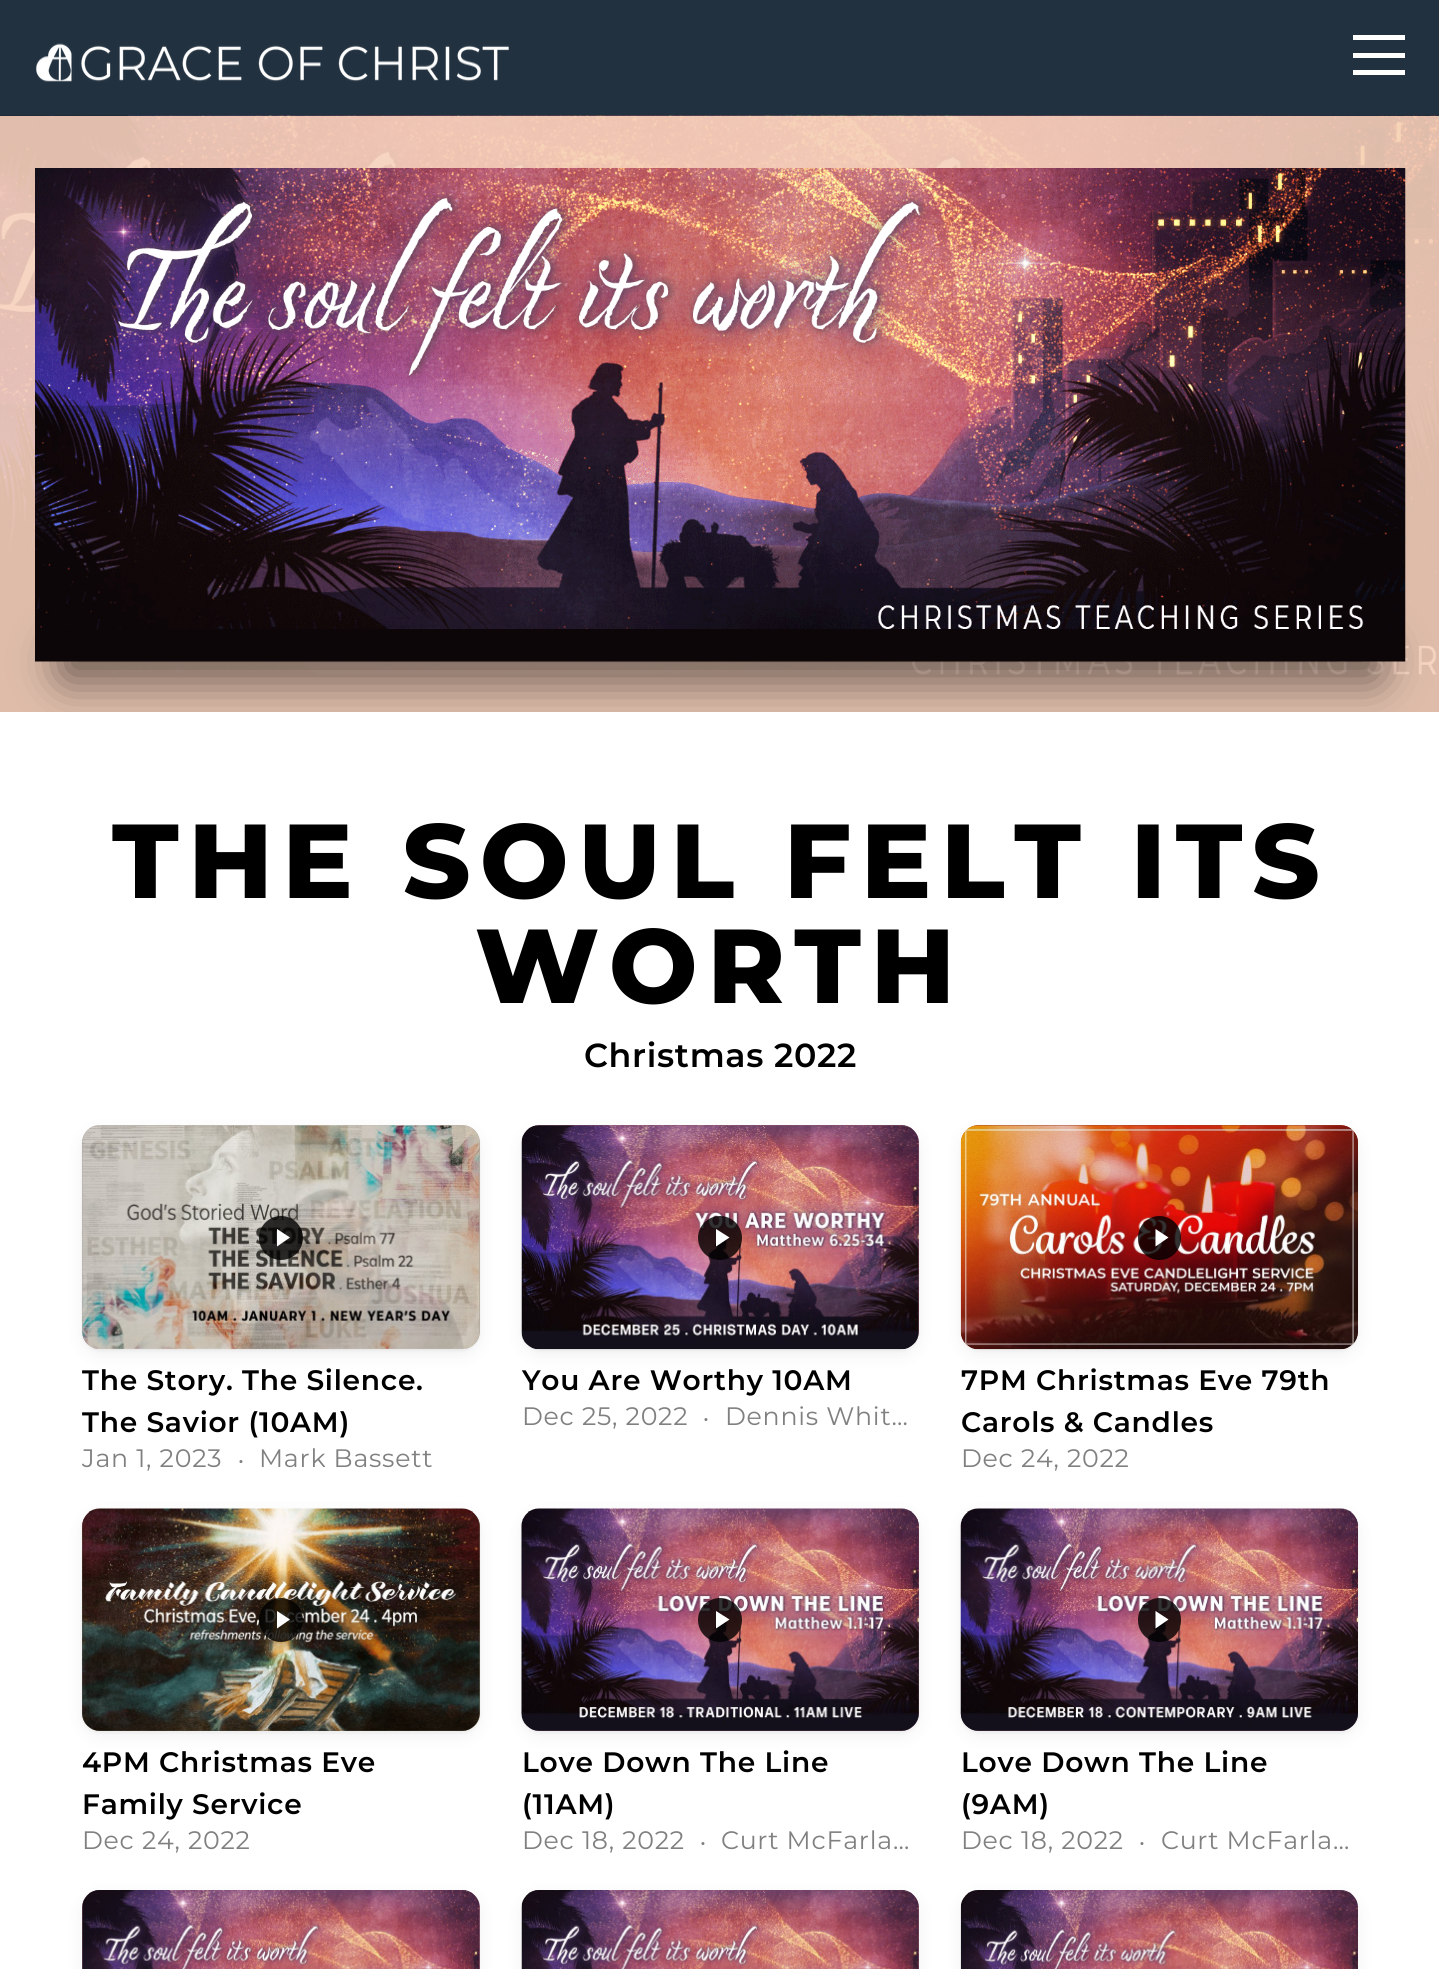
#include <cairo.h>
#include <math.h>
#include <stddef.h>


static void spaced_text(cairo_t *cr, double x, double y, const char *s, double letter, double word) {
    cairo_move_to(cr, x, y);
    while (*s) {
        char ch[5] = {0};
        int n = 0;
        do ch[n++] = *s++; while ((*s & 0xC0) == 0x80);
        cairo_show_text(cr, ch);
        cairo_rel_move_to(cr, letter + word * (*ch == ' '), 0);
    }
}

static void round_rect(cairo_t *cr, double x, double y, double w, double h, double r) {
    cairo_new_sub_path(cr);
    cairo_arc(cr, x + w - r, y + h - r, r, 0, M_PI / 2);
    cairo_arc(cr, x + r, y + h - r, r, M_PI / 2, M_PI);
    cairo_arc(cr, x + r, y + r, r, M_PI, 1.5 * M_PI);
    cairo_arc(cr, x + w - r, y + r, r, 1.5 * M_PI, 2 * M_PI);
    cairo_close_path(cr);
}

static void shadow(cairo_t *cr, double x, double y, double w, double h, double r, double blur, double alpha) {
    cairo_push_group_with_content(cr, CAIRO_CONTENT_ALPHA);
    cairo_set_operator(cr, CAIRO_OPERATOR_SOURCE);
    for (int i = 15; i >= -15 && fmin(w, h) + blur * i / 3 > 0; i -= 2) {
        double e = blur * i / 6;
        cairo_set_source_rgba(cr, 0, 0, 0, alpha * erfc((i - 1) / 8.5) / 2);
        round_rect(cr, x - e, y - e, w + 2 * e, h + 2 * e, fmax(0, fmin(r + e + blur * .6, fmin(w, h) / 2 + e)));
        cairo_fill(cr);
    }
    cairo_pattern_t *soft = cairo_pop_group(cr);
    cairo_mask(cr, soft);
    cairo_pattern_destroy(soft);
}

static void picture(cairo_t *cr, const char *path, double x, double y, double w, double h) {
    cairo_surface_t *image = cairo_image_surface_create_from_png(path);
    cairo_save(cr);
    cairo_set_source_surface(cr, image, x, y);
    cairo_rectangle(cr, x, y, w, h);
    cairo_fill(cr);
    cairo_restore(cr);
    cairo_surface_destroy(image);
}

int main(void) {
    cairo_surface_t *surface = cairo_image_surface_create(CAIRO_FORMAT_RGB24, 1439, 1969);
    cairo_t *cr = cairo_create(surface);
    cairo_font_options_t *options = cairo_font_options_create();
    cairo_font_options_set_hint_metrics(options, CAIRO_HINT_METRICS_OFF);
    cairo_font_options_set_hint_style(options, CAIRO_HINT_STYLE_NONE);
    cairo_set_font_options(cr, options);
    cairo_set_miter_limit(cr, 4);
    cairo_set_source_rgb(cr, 0.133, 0.192, 0.247);
    cairo_paint(cr);
    picture(cr, "img1.png", 36, 43, 473, 39);
    cairo_set_source_rgb(cr, 1, 1, 1);
    cairo_rectangle(cr, 1353, 35, 52, 5);
    cairo_fill(cr);
    cairo_rectangle(cr, 1353, 53, 52, 5);
    cairo_fill(cr);
    cairo_rectangle(cr, 1353, 70, 52, 5);
    cairo_fill(cr);
    picture(cr, "img2.png", 0, 115, 1439, 597);
    cairo_set_source_rgb(cr, 0, 0, 0);
    shadow(cr, 60, 642, 1321, 39, 19.5, 22, 0.5);
    picture(cr, "img3.png", 35, 168, 1371, 494);
    cairo_set_source_rgb(cr, 1, 1, 1);
    cairo_rectangle(cr, 0, 712, 1439, 1257);
    cairo_fill(cr);
    cairo_select_font_face(cr, "Montserrat ExtraBold", CAIRO_FONT_SLANT_NORMAL, CAIRO_FONT_WEIGHT_NORMAL);
    cairo_set_font_size(cr, 105);
    cairo_set_source_rgb(cr, 0, 0, 0);
    spaced_text(cr, 112, 898, "THE SOUL FELT ITS", 9.5, 0);
    spaced_text(cr, 475, 1003, "WORTH", 9.5, 0);
    cairo_select_font_face(cr, "Montserrat SemiBold", CAIRO_FONT_SLANT_NORMAL, CAIRO_FONT_WEIGHT_NORMAL);
    cairo_set_font_size(cr, 33.25);
    spaced_text(cr, 584, 1067, "Christmas 2022", 0.7, 0);
    cairo_set_source_rgb(cr, 0, 0, 0);
    shadow(cr, 82, 1127, 398, 224, 18, 2, 0.04);
    shadow(cr, 82, 1131, 398, 224, 18, 9, 0.06);
    cairo_set_source_rgb(cr, 0.694, 0.671, 0.627);
    round_rect(cr, 82, 1125, 398, 224, 18);
    cairo_fill(cr);
    picture(cr, "img4.png", 82, 1125, 398, 225);
    cairo_set_source_rgba(cr, 0, 0, 0, 0.8);
    cairo_arc(cr, 281, 1238, 22, 0, 2 * M_PI);
    cairo_fill(cr);
    cairo_set_source_rgb(cr, 1, 1, 1);
    cairo_new_path(cr);
    cairo_move_to(cr, 277, 1246.5);
    cairo_line_to(cr, 277, 1229);
    cairo_line_to(cr, 290, 1237.5);
    cairo_close_path(cr);
    cairo_fill(cr);
    cairo_set_font_size(cr, 28.1);
    cairo_set_source_rgb(cr, 0, 0, 0);
    spaced_text(cr, 82, 1390, "The Story. The Silence.", 0.75, 0);
    spaced_text(cr, 82, 1432, "The Savior (10AM)", 0.75, 0);
    cairo_select_font_face(cr, "Montserrat", CAIRO_FONT_SLANT_NORMAL, CAIRO_FONT_WEIGHT_NORMAL);
    cairo_set_font_size(cr, 25.25);
    cairo_set_source_rgb(cr, 0.502, 0.502, 0.502);
    spaced_text(cr, 82, 1467, "Jan 1, 2023", 0.75, 0);
    cairo_set_font_size(cr, 20);
    spaced_text(cr, 238, 1467, "•", 0.75, 0);
    cairo_set_font_size(cr, 25.25);
    spaced_text(cr, 259, 1467, "Mark Bassett", 0.75, 0);
    cairo_set_source_rgb(cr, 0, 0, 0);
    shadow(cr, 522, 1127, 397, 224, 18, 2, 0.04);
    shadow(cr, 522, 1131, 397, 224, 18, 9, 0.06);
    cairo_set_source_rgb(cr, 0.541, 0.345, 0.431);
    round_rect(cr, 522, 1125, 397, 224, 18);
    cairo_fill(cr);
    picture(cr, "img5.png", 521, 1125, 398, 225);
    cairo_set_source_rgba(cr, 0, 0, 0, 0.8);
    cairo_arc(cr, 720, 1238, 22, 0, 2 * M_PI);
    cairo_fill(cr);
    cairo_set_source_rgb(cr, 1, 1, 1);
    cairo_new_path(cr);
    cairo_move_to(cr, 716, 1246.5);
    cairo_line_to(cr, 716, 1229);
    cairo_line_to(cr, 729.5, 1237.5);
    cairo_close_path(cr);
    cairo_fill(cr);
    cairo_select_font_face(cr, "Montserrat SemiBold", CAIRO_FONT_SLANT_NORMAL, CAIRO_FONT_WEIGHT_NORMAL);
    cairo_set_font_size(cr, 28.1);
    cairo_set_source_rgb(cr, 0, 0, 0);
    spaced_text(cr, 522, 1390, "You Are Worthy 10AM", 0.75, 0);
    cairo_select_font_face(cr, "Montserrat", CAIRO_FONT_SLANT_NORMAL, CAIRO_FONT_WEIGHT_NORMAL);
    cairo_set_font_size(cr, 25.25);
    cairo_set_source_rgb(cr, 0.502, 0.502, 0.502);
    spaced_text(cr, 522, 1425, "Dec 25, 2022", 0.75, 0);
    cairo_set_font_size(cr, 20);
    spaced_text(cr, 703, 1425, "•", 0.75, 0);
    cairo_set_font_size(cr, 25.25);
    spaced_text(cr, 725, 1425, "Dennis Whit…", 0.75, 0);
    cairo_set_source_rgb(cr, 0, 0, 0);
    shadow(cr, 961, 1127, 397, 224, 18, 2, 0.04);
    shadow(cr, 961, 1131, 397, 224, 18, 9, 0.06);
    cairo_set_source_rgb(cr, 0.608, 0.235, 0.18);
    round_rect(cr, 961, 1125, 397, 224, 18);
    cairo_fill(cr);
    picture(cr, "img6.png", 960, 1125, 398, 225);
    cairo_set_source_rgba(cr, 0, 0, 0, 0.8);
    round_rect(cr, 1138, 1216, 43, 44, 21.5);
    cairo_fill(cr);
    cairo_set_source_rgb(cr, 1, 1, 1);
    cairo_new_path(cr);
    cairo_move_to(cr, 1155.5, 1246.5);
    cairo_line_to(cr, 1155.5, 1229);
    cairo_line_to(cr, 1168.5, 1237.5);
    cairo_close_path(cr);
    cairo_fill(cr);
    cairo_select_font_face(cr, "Montserrat SemiBold", CAIRO_FONT_SLANT_NORMAL, CAIRO_FONT_WEIGHT_NORMAL);
    cairo_set_font_size(cr, 28.1);
    cairo_set_source_rgb(cr, 0, 0, 0);
    spaced_text(cr, 961, 1390, "7PM Christmas Eve 79th", 0.75, 0);
    spaced_text(cr, 961, 1432, "Carols & Candles", 0.75, 0);
    cairo_select_font_face(cr, "Montserrat", CAIRO_FONT_SLANT_NORMAL, CAIRO_FONT_WEIGHT_NORMAL);
    cairo_set_font_size(cr, 25.25);
    cairo_set_source_rgb(cr, 0.502, 0.502, 0.502);
    spaced_text(cr, 961, 1467, "Dec 24, 2022", 0.75, 0);
    cairo_set_source_rgb(cr, 0, 0, 0);
    shadow(cr, 82, 1510, 398, 223, 18, 2, 0.04);
    shadow(cr, 82, 1514, 398, 222, 18, 9, 0.06);
    cairo_set_source_rgb(cr, 0.431, 0.396, 0.322);
    round_rect(cr, 82, 1509, 398, 222, 18);
    cairo_fill(cr);
    picture(cr, "img7.png", 82, 1508, 398, 223);
    cairo_set_source_rgba(cr, 0, 0, 0, 0.8);
    cairo_arc(cr, 281, 1620, 22, 0, 2 * M_PI);
    cairo_fill(cr);
    cairo_set_source_rgb(cr, 1, 1, 1);
    cairo_new_path(cr);
    cairo_move_to(cr, 277, 1628.5);
    cairo_line_to(cr, 277, 1611);
    cairo_line_to(cr, 290, 1619.5);
    cairo_close_path(cr);
    cairo_fill(cr);
    cairo_select_font_face(cr, "Montserrat SemiBold", CAIRO_FONT_SLANT_NORMAL, CAIRO_FONT_WEIGHT_NORMAL);
    cairo_set_font_size(cr, 28.1);
    cairo_set_source_rgb(cr, 0, 0, 0);
    spaced_text(cr, 82, 1772, "4PM Christmas Eve", 0.75, 0);
    spaced_text(cr, 82, 1814, "Family Service", 0.75, 0);
    cairo_select_font_face(cr, "Montserrat", CAIRO_FONT_SLANT_NORMAL, CAIRO_FONT_WEIGHT_NORMAL);
    cairo_set_font_size(cr, 25.25);
    cairo_set_source_rgb(cr, 0.502, 0.502, 0.502);
    spaced_text(cr, 82, 1849, "Dec 24, 2022", 0.75, 0);
    cairo_set_source_rgb(cr, 0, 0, 0);
    shadow(cr, 522, 1510, 397, 223, 18, 2, 0.04);
    shadow(cr, 522, 1514, 397, 222, 18, 9, 0.06);
    cairo_set_source_rgb(cr, 0.537, 0.345, 0.431);
    round_rect(cr, 522, 1509, 397, 222, 18);
    cairo_fill(cr);
    picture(cr, "img8.png", 521, 1508, 398, 223);
    cairo_set_source_rgba(cr, 0, 0, 0, 0.8);
    cairo_arc(cr, 720, 1620, 22, 0, 2 * M_PI);
    cairo_fill(cr);
    cairo_set_source_rgb(cr, 1, 1, 1);
    cairo_new_path(cr);
    cairo_move_to(cr, 716, 1628.5);
    cairo_line_to(cr, 716, 1611);
    cairo_line_to(cr, 729.5, 1619.5);
    cairo_close_path(cr);
    cairo_fill(cr);
    cairo_select_font_face(cr, "Montserrat SemiBold", CAIRO_FONT_SLANT_NORMAL, CAIRO_FONT_WEIGHT_NORMAL);
    cairo_set_font_size(cr, 28.1);
    cairo_set_source_rgb(cr, 0, 0, 0);
    spaced_text(cr, 522, 1772, "Love Down The Line", 0.75, 0);
    spaced_text(cr, 522, 1814, "(11AM)", 0.75, 0);
    cairo_select_font_face(cr, "Montserrat", CAIRO_FONT_SLANT_NORMAL, CAIRO_FONT_WEIGHT_NORMAL);
    cairo_set_font_size(cr, 25.25);
    cairo_set_source_rgb(cr, 0.502, 0.502, 0.502);
    spaced_text(cr, 522, 1849, "Dec 18, 2022", 0.75, 0);
    cairo_set_font_size(cr, 20);
    spaced_text(cr, 700, 1849, "•", 0.75, 0);
    cairo_set_font_size(cr, 25.25);
    spaced_text(cr, 721, 1849, "Curt McFarla…", 0.75, 0);
    cairo_set_source_rgb(cr, 0, 0, 0);
    shadow(cr, 961, 1510, 397, 223, 18, 2, 0.04);
    shadow(cr, 961, 1514, 397, 222, 18, 9, 0.06);
    cairo_set_source_rgb(cr, 0.537, 0.345, 0.435);
    round_rect(cr, 961, 1509, 397, 222, 18);
    cairo_fill(cr);
    picture(cr, "img9.png", 960, 1508, 398, 223);
    cairo_set_source_rgba(cr, 0, 0, 0, 0.8);
    round_rect(cr, 1138, 1598, 43, 44, 21.5);
    cairo_fill(cr);
    cairo_set_source_rgb(cr, 1, 1, 1);
    cairo_new_path(cr);
    cairo_move_to(cr, 1155.5, 1628.5);
    cairo_line_to(cr, 1155.5, 1611);
    cairo_line_to(cr, 1168.5, 1619.5);
    cairo_close_path(cr);
    cairo_fill(cr);
    cairo_select_font_face(cr, "Montserrat SemiBold", CAIRO_FONT_SLANT_NORMAL, CAIRO_FONT_WEIGHT_NORMAL);
    cairo_set_font_size(cr, 28.1);
    cairo_set_source_rgb(cr, 0, 0, 0);
    spaced_text(cr, 961, 1772, "Love Down The Line", 0.75, 0);
    spaced_text(cr, 961, 1814, "(9AM)", 0.75, 0);
    cairo_select_font_face(cr, "Montserrat", CAIRO_FONT_SLANT_NORMAL, CAIRO_FONT_WEIGHT_NORMAL);
    cairo_set_font_size(cr, 25.25);
    cairo_set_source_rgb(cr, 0.502, 0.502, 0.502);
    spaced_text(cr, 961, 1849, "Dec 18, 2022", 0.75, 0);
    cairo_set_font_size(cr, 20);
    spaced_text(cr, 1139, 1849, "•", 0.75, 0);
    cairo_set_font_size(cr, 25.25);
    spaced_text(cr, 1161, 1849, "Curt McFarla…", 0.75, 0);
    cairo_set_source_rgb(cr, 0, 0, 0);
    shadow(cr, 82, 1895, 398, 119, 18, 9, 0.06);
    cairo_set_source_rgb(cr, 0.537, 0.353, 0.439);
    round_rect(cr, 82, 1890, 398, 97, 18);
    cairo_fill(cr);
    picture(cr, "img10.png", 82, 1890, 398, 79);
    cairo_set_source_rgb(cr, 0, 0, 0);
    shadow(cr, 522, 1895, 397, 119, 18, 9, 0.06);
    cairo_set_source_rgb(cr, 0.541, 0.353, 0.439);
    round_rect(cr, 522, 1890, 397, 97, 18);
    cairo_fill(cr);
    picture(cr, "img11.png", 521, 1890, 398, 79);
    cairo_set_source_rgb(cr, 0, 0, 0);
    shadow(cr, 961, 1895, 397, 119, 18, 9, 0.06);
    picture(cr, "img12.png", 960, 1890, 398, 79);
    cairo_surface_write_to_png(surface, "page.png");
    cairo_font_options_destroy(options);
    cairo_destroy(cr);
    cairo_surface_destroy(surface);
    return 0;
}
